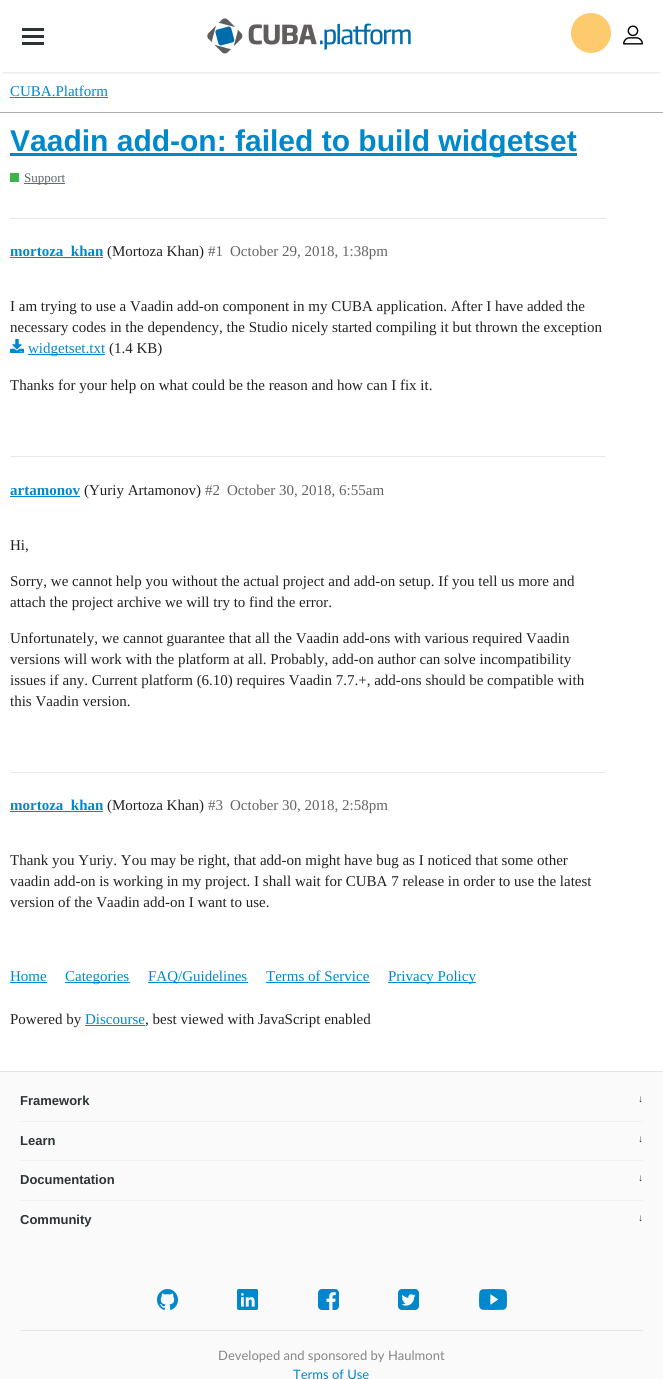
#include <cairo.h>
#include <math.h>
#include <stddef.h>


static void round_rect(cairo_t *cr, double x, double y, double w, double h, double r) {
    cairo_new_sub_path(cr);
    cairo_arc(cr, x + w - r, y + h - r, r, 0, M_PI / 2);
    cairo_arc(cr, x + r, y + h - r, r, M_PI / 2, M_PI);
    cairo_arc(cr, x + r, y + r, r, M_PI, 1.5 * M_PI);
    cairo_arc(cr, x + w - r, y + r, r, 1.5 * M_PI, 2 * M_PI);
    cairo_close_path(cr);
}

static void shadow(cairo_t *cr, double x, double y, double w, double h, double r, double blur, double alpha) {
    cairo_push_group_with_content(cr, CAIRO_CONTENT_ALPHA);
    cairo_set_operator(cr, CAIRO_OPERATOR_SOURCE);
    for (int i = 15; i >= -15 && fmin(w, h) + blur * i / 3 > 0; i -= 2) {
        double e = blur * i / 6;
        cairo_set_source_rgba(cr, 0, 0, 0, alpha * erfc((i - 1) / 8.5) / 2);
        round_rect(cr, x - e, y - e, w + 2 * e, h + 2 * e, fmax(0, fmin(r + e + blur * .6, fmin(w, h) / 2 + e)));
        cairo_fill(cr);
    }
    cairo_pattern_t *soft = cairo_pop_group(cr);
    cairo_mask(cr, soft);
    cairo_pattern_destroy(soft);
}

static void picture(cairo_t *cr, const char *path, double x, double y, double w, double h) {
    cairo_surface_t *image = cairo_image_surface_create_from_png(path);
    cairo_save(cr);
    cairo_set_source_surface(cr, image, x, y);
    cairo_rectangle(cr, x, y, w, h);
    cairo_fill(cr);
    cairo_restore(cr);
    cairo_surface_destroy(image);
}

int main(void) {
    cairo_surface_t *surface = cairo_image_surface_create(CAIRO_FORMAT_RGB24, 663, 1379);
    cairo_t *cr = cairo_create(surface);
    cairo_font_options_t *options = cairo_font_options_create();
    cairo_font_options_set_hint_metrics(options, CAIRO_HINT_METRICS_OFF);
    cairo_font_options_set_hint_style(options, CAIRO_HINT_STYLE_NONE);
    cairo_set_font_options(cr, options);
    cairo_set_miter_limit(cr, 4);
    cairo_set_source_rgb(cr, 1, 1, 1);
    cairo_paint(cr);
    cairo_save(cr);
    cairo_rectangle(cr, 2, 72, 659, 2);
    cairo_clip(cr);
    cairo_set_source_rgb(cr, 0, 0, 0);
    shadow(cr, 3, 5, 657, 66, 0, 2.5, 0.25);
    cairo_restore(cr);
    cairo_set_source_rgb(cr, 0.173, 0.204, 0.212);
    cairo_rectangle(cr, 22, 28, 22, 3);
    cairo_fill(cr);
    cairo_rectangle(cr, 22, 35, 22, 3);
    cairo_fill(cr);
    cairo_rectangle(cr, 22, 42, 22, 3);
    cairo_fill(cr);
    picture(cr, "img1.png", 207, 18, 204, 36);
    cairo_set_source_rgb(cr, 0.992, 0.796, 0.431);
    cairo_arc(cr, 591, 33, 20, 0, 2 * M_PI);
    cairo_fill(cr);
    picture(cr, "img2.png", 623, 25, 20, 20);
    cairo_set_source_rgb(cr, 0.686, 0.686, 0.686);
    cairo_rectangle(cr, 0, 112, 663, 1);
    cairo_fill(cr);
    cairo_select_font_face(cr, "Liberation Serif", CAIRO_FONT_SLANT_NORMAL, CAIRO_FONT_WEIGHT_NORMAL);
    cairo_set_font_size(cr, 15);
    cairo_set_source_rgb(cr, 0, 0.533, 0.8);
    cairo_move_to(cr, 10, 96);
    cairo_show_text(cr, "CUBA.Platform");
    cairo_rectangle(cr, 10, 97, 98, 1);
    cairo_fill(cr);
    cairo_rectangle(cr, 10, 153, 567, 3);
    cairo_fill(cr);
    cairo_select_font_face(cr, "Liberation Sans", CAIRO_FONT_SLANT_NORMAL, CAIRO_FONT_WEIGHT_BOLD);
    cairo_set_font_size(cr, 30);
    cairo_move_to(cr, 10, 151);
    cairo_show_text(cr, "Vaadin add-on: failed to build widgetset");
    cairo_set_source_rgb(cr, 0.227, 0.71, 0.29);
    cairo_rectangle(cr, 10, 173, 9, 9);
    cairo_fill(cr);
    cairo_set_source_rgb(cr, 0, 0.533, 0.8);
    cairo_rectangle(cr, 24, 183, 41, 1);
    cairo_fill(cr);
    cairo_select_font_face(cr, "Liberation Serif", CAIRO_FONT_SLANT_NORMAL, CAIRO_FONT_WEIGHT_NORMAL);
    cairo_set_font_size(cr, 13);
    cairo_set_source_rgb(cr, 0.392, 0.392, 0.392);
    cairo_move_to(cr, 24, 182);
    cairo_show_text(cr, "Support");
    cairo_set_source_rgb(cr, 0.914, 0.914, 0.914);
    cairo_rectangle(cr, 10, 218, 596, 1);
    cairo_fill(cr);
    cairo_set_source_rgb(cr, 0, 0.533, 0.8);
    cairo_rectangle(cr, 10, 257, 93, 1);
    cairo_fill(cr);
    cairo_select_font_face(cr, "Liberation Serif", CAIRO_FONT_SLANT_NORMAL, CAIRO_FONT_WEIGHT_BOLD);
    cairo_set_font_size(cr, 15);
    cairo_move_to(cr, 10, 256);
    cairo_show_text(cr, "mortoza_khan");
    cairo_select_font_face(cr, "Liberation Serif", CAIRO_FONT_SLANT_NORMAL, CAIRO_FONT_WEIGHT_NORMAL);
    cairo_set_source_rgb(cr, 0.133, 0.133, 0.133);
    cairo_move_to(cr, 107, 256);
    cairo_show_text(cr, "(Mortoza Khan)");
    cairo_set_source_rgb(cr, 0.392, 0.392, 0.392);
    cairo_move_to(cr, 208, 256);
    cairo_show_text(cr, "#1");
    cairo_move_to(cr, 230, 256);
    cairo_show_text(cr, "October 29, 2018, 1:38pm");
    cairo_set_source_rgb(cr, 0.133, 0.133, 0.133);
    cairo_move_to(cr, 10, 311);
    cairo_show_text(cr, "I am trying to use a Vaadin add-on component in my CUBA application. After I have added the");
    cairo_move_to(cr, 10, 332);
    cairo_show_text(cr, "necessary codes in the dependency, the Studio nicely started compiling it but thrown the exception");
    picture(cr, "img3.png", 10, 339, 14, 14);
    cairo_set_source_rgb(cr, 0, 0.533, 0.8);
    cairo_rectangle(cr, 28, 354, 77, 1);
    cairo_fill(cr);
    cairo_move_to(cr, 28, 353);
    cairo_show_text(cr, "widgetset.txt");
    cairo_set_source_rgb(cr, 0.133, 0.133, 0.133);
    cairo_move_to(cr, 109, 353);
    cairo_show_text(cr, "(1.4 KB)");
    cairo_move_to(cr, 10, 390);
    cairo_show_text(cr, "Thanks for your help on what could be the reason and how can I fix it.");
    cairo_set_source_rgb(cr, 0.914, 0.914, 0.914);
    cairo_rectangle(cr, 10, 456, 596, 1);
    cairo_fill(cr);
    cairo_select_font_face(cr, "Liberation Serif", CAIRO_FONT_SLANT_NORMAL, CAIRO_FONT_WEIGHT_BOLD);
    cairo_set_source_rgb(cr, 0, 0.533, 0.8);
    cairo_move_to(cr, 10, 495);
    cairo_show_text(cr, "artamonov");
    cairo_rectangle(cr, 10, 496, 70, 1);
    cairo_fill(cr);
    cairo_select_font_face(cr, "Liberation Serif", CAIRO_FONT_SLANT_NORMAL, CAIRO_FONT_WEIGHT_NORMAL);
    cairo_set_source_rgb(cr, 0.133, 0.133, 0.133);
    cairo_move_to(cr, 84, 495);
    cairo_show_text(cr, "(Yuriy Artamonov)");
    cairo_set_source_rgb(cr, 0.392, 0.392, 0.392);
    cairo_move_to(cr, 205, 495);
    cairo_show_text(cr, "#2");
    cairo_move_to(cr, 227, 495);
    cairo_show_text(cr, "October 30, 2018, 6:55am");
    cairo_set_source_rgb(cr, 0.133, 0.133, 0.133);
    cairo_move_to(cr, 10, 550);
    cairo_show_text(cr, "Hi,");
    cairo_move_to(cr, 10, 586);
    cairo_show_text(cr, "Sorry, we cannot help you without the actual project and add-on setup. If you tell us more and");
    cairo_move_to(cr, 10, 607);
    cairo_show_text(cr, "attach the project archive we will try to find the error.");
    cairo_move_to(cr, 10, 643);
    cairo_show_text(cr, "Unfortunately, we cannot guarantee that all the Vaadin add-ons with various required Vaadin");
    cairo_move_to(cr, 10, 664);
    cairo_show_text(cr, "versions will work with the platform at all. Probably, add-on author can solve incompatibility");
    cairo_move_to(cr, 10, 685);
    cairo_show_text(cr, "issues if any. Current platform (6.10) requires Vaadin 7.7.+, add-ons should be compatible with");
    cairo_move_to(cr, 10, 706);
    cairo_show_text(cr, "this Vaadin version.");
    cairo_set_source_rgb(cr, 0.914, 0.914, 0.914);
    cairo_rectangle(cr, 10, 772, 596, 1);
    cairo_fill(cr);
    cairo_set_source_rgb(cr, 0, 0.533, 0.8);
    cairo_rectangle(cr, 10, 811, 93, 1);
    cairo_fill(cr);
    cairo_select_font_face(cr, "Liberation Serif", CAIRO_FONT_SLANT_NORMAL, CAIRO_FONT_WEIGHT_BOLD);
    cairo_move_to(cr, 10, 810);
    cairo_show_text(cr, "mortoza_khan");
    cairo_select_font_face(cr, "Liberation Serif", CAIRO_FONT_SLANT_NORMAL, CAIRO_FONT_WEIGHT_NORMAL);
    cairo_set_source_rgb(cr, 0.133, 0.133, 0.133);
    cairo_move_to(cr, 107, 810);
    cairo_show_text(cr, "(Mortoza Khan)");
    cairo_set_source_rgb(cr, 0.392, 0.392, 0.392);
    cairo_move_to(cr, 208, 810);
    cairo_show_text(cr, "#3");
    cairo_move_to(cr, 230, 810);
    cairo_show_text(cr, "October 30, 2018, 2:58pm");
    cairo_set_source_rgb(cr, 0.133, 0.133, 0.133);
    cairo_move_to(cr, 10, 865);
    cairo_show_text(cr, "Thank you Yuriy. You may be right, that add-on might have bug as I noticed that some other");
    cairo_move_to(cr, 10, 886);
    cairo_show_text(cr, "vaadin add-on is working in my project. I shall wait for CUBA 7 release in order to use the latest");
    cairo_move_to(cr, 10, 907);
    cairo_show_text(cr, "version of the Vaadin add-on I want to use.");
    cairo_set_source_rgb(cr, 0, 0.533, 0.8);
    cairo_move_to(cr, 10, 981);
    cairo_show_text(cr, "Home");
    cairo_rectangle(cr, 10, 982, 37, 1);
    cairo_fill(cr);
    cairo_rectangle(cr, 65, 982, 65, 1);
    cairo_fill(cr);
    cairo_move_to(cr, 65, 981);
    cairo_show_text(cr, "Categories");
    cairo_rectangle(cr, 148, 982, 100, 1);
    cairo_fill(cr);
    cairo_move_to(cr, 148, 981);
    cairo_show_text(cr, "FAQ/Guidelines");
    cairo_move_to(cr, 266, 981);
    cairo_show_text(cr, "Terms of Service");
    cairo_rectangle(cr, 266, 982, 104, 1);
    cairo_fill(cr);
    cairo_rectangle(cr, 388, 982, 88, 1);
    cairo_fill(cr);
    cairo_move_to(cr, 388, 981);
    cairo_show_text(cr, "Privacy Policy");
    cairo_set_source_rgb(cr, 0.133, 0.133, 0.133);
    cairo_move_to(cr, 10, 1024);
    cairo_show_text(cr, "Powered by");
    cairo_set_source_rgb(cr, 0, 0.533, 0.8);
    cairo_move_to(cr, 85, 1024);
    cairo_show_text(cr, "Discourse");
    cairo_rectangle(cr, 85, 1025, 60, 1);
    cairo_fill(cr);
    cairo_set_source_rgb(cr, 0.133, 0.133, 0.133);
    cairo_move_to(cr, 145, 1024);
    cairo_show_text(cr, ", best viewed with JavaScript enabled");
    cairo_set_source_rgb(cr, 0.98, 0.98, 0.98);
    cairo_rectangle(cr, 0, 1072, 663, 307);
    cairo_fill(cr);
    cairo_set_source_rgb(cr, 0.898, 0.898, 0.898);
    cairo_rectangle(cr, 0, 1071, 663, 1);
    cairo_fill(cr);
    cairo_set_source_rgb(cr, 0.941, 0.941, 0.941);
    cairo_rectangle(cr, 20, 1121, 623, 1);
    cairo_fill(cr);
    cairo_select_font_face(cr, "Liberation Sans", CAIRO_FONT_SLANT_NORMAL, CAIRO_FONT_WEIGHT_BOLD);
    cairo_set_font_size(cr, 13);
    cairo_set_source_rgb(cr, 0.173, 0.204, 0.212);
    cairo_move_to(cr, 20, 1105);
    cairo_show_text(cr, "Framework");
    cairo_select_font_face(cr, "Liberation Sans", CAIRO_FONT_SLANT_NORMAL, CAIRO_FONT_WEIGHT_NORMAL);
    cairo_set_font_size(cr, 10);
    cairo_move_to(cr, 638, 1102);
    cairo_show_text(cr, "↓");
    cairo_set_source_rgb(cr, 0.941, 0.941, 0.941);
    cairo_rectangle(cr, 20, 1160, 623, 1);
    cairo_fill(cr);
    cairo_select_font_face(cr, "Liberation Sans", CAIRO_FONT_SLANT_NORMAL, CAIRO_FONT_WEIGHT_BOLD);
    cairo_set_font_size(cr, 13);
    cairo_set_source_rgb(cr, 0.173, 0.204, 0.212);
    cairo_move_to(cr, 20, 1145);
    cairo_show_text(cr, "Learn");
    cairo_select_font_face(cr, "Liberation Sans", CAIRO_FONT_SLANT_NORMAL, CAIRO_FONT_WEIGHT_NORMAL);
    cairo_set_font_size(cr, 10);
    cairo_move_to(cr, 638, 1142);
    cairo_show_text(cr, "↓");
    cairo_set_source_rgb(cr, 0.941, 0.941, 0.941);
    cairo_rectangle(cr, 20, 1200, 623, 1);
    cairo_fill(cr);
    cairo_select_font_face(cr, "Liberation Sans", CAIRO_FONT_SLANT_NORMAL, CAIRO_FONT_WEIGHT_BOLD);
    cairo_set_font_size(cr, 13);
    cairo_set_source_rgb(cr, 0.173, 0.204, 0.212);
    cairo_move_to(cr, 20, 1184);
    cairo_show_text(cr, "Documentation");
    cairo_select_font_face(cr, "Liberation Sans", CAIRO_FONT_SLANT_NORMAL, CAIRO_FONT_WEIGHT_NORMAL);
    cairo_set_font_size(cr, 10);
    cairo_move_to(cr, 638, 1181);
    cairo_show_text(cr, "↓");
    cairo_select_font_face(cr, "Liberation Sans", CAIRO_FONT_SLANT_NORMAL, CAIRO_FONT_WEIGHT_BOLD);
    cairo_set_font_size(cr, 13);
    cairo_move_to(cr, 20, 1224);
    cairo_show_text(cr, "Community");
    cairo_select_font_face(cr, "Liberation Sans", CAIRO_FONT_SLANT_NORMAL, CAIRO_FONT_WEIGHT_NORMAL);
    cairo_set_font_size(cr, 10);
    cairo_move_to(cr, 638, 1221);
    cairo_show_text(cr, "↓");
    picture(cr, "img4.png", 157, 1289, 21, 21);
    picture(cr, "img5.png", 237, 1289, 21, 21);
    picture(cr, "img6.png", 318, 1289, 21, 21);
    picture(cr, "img7.png", 398, 1289, 21, 21);
    picture(cr, "img8.png", 479, 1289, 28, 21);
    cairo_set_source_rgb(cr, 0.898, 0.898, 0.898);
    cairo_rectangle(cr, 20, 1330, 623, 1);
    cairo_fill(cr);
    cairo_select_font_face(cr, "Lato", CAIRO_FONT_SLANT_NORMAL, CAIRO_FONT_WEIGHT_NORMAL);
    cairo_set_font_size(cr, 13);
    cairo_set_source_rgb(cr, 0.525, 0.525, 0.522);
    cairo_move_to(cr, 218, 1360);
    cairo_show_text(cr, "Developed and sponsored by Haulmont");
    cairo_set_source_rgb(cr, 0, 0.533, 0.8);
    cairo_move_to(cr, 293, 1379);
    cairo_show_text(cr, "Terms of Use");
    cairo_surface_write_to_png(surface, "page.png");
    cairo_font_options_destroy(options);
    cairo_destroy(cr);
    cairo_surface_destroy(surface);
    return 0;
}
